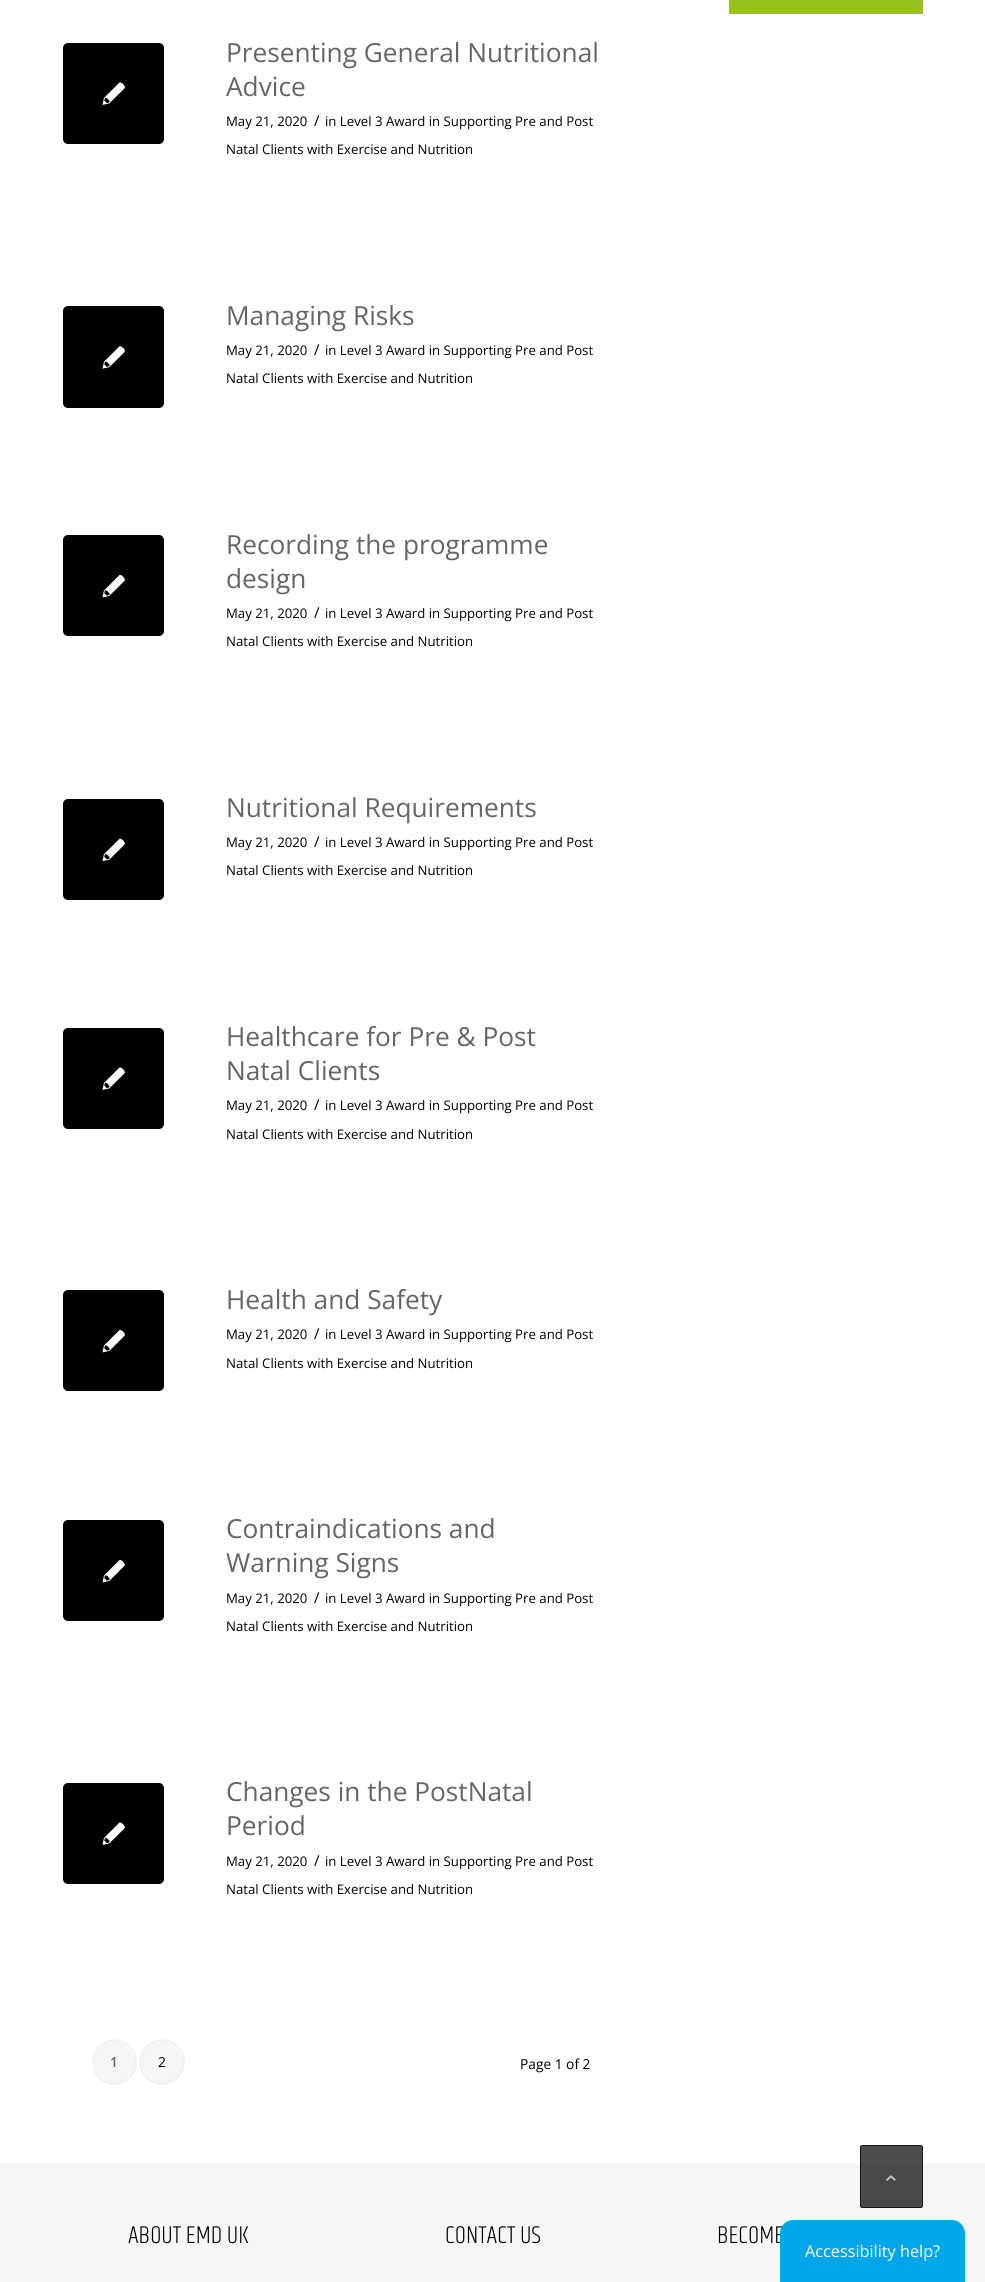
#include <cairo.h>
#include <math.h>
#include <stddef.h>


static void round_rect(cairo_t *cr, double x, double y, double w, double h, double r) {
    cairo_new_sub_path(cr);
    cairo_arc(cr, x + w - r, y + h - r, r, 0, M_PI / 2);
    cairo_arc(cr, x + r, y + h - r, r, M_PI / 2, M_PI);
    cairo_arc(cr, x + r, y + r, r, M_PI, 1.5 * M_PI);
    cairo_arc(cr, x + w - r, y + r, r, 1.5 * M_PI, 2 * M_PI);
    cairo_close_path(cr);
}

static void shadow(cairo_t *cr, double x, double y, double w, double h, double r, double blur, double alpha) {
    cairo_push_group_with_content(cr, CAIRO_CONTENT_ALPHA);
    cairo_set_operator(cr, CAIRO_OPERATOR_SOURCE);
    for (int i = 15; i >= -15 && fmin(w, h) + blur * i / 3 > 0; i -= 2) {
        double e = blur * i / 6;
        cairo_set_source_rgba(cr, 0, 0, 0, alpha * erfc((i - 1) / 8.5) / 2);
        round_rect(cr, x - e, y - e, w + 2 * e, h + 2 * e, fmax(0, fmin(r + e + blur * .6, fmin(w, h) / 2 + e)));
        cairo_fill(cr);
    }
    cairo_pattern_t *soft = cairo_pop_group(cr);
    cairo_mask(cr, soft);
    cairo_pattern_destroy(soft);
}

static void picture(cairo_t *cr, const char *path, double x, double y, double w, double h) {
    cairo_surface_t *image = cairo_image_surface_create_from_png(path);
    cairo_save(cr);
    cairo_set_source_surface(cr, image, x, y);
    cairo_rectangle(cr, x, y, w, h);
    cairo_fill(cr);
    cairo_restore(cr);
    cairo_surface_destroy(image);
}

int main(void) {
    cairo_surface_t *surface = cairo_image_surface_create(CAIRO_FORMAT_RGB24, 985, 2282);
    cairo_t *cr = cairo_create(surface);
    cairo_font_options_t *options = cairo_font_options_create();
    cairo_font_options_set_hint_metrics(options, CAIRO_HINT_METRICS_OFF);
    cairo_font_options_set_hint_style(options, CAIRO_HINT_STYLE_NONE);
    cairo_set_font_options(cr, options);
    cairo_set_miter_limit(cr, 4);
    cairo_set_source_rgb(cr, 1, 1, 1);
    cairo_paint(cr);
    cairo_set_source_rgb(cr, 0.588, 0.757, 0.122);
    cairo_rectangle(cr, 729, 0, 194, 14);
    cairo_fill(cr);
    cairo_set_source_rgb(cr, 0, 0, 0);
    round_rect(cr, 63, 43, 101, 101, 5);
    cairo_fill(cr);
    picture(cr, "img1.png", 102, 82, 23, 23);
    cairo_select_font_face(cr, "Open Sans", CAIRO_FONT_SLANT_NORMAL, CAIRO_FONT_WEIGHT_NORMAL);
    cairo_set_font_size(cr, 26.25);
    cairo_set_source_rgb(cr, 0.396, 0.396, 0.396);
    cairo_move_to(cr, 226, 62);
    cairo_show_text(cr, "Presenting General Nutritional");
    cairo_move_to(cr, 226, 96);
    cairo_show_text(cr, "Advice");
    cairo_set_font_size(cr, 13.2);
    cairo_set_source_rgb(cr, 0, 0, 0);
    cairo_move_to(cr, 226, 126);
    cairo_show_text(cr, "May 21, 2020");
    cairo_set_font_size(cr, 15);
    cairo_move_to(cr, 314, 126);
    cairo_show_text(cr, "/");
    cairo_set_font_size(cr, 13.2);
    cairo_move_to(cr, 325, 126);
    cairo_show_text(cr, "in Level 3 Award in Supporting Pre and Post");
    cairo_move_to(cr, 226, 154);
    cairo_show_text(cr, "Natal Clients with Exercise and Nutrition");
    round_rect(cr, 63, 306, 101, 102, 5);
    cairo_fill(cr);
    picture(cr, "img2.png", 102, 346, 23, 23);
    cairo_set_font_size(cr, 26.25);
    cairo_set_source_rgb(cr, 0.396, 0.396, 0.396);
    cairo_move_to(cr, 226, 325);
    cairo_show_text(cr, "Managing Risks");
    cairo_set_font_size(cr, 13.2);
    cairo_set_source_rgb(cr, 0, 0, 0);
    cairo_move_to(cr, 226, 355);
    cairo_show_text(cr, "May 21, 2020");
    cairo_set_font_size(cr, 15);
    cairo_move_to(cr, 314, 355);
    cairo_show_text(cr, "/");
    cairo_set_font_size(cr, 13.2);
    cairo_move_to(cr, 325, 355);
    cairo_show_text(cr, "in Level 3 Award in Supporting Pre and Post");
    cairo_move_to(cr, 226, 383);
    cairo_show_text(cr, "Natal Clients with Exercise and Nutrition");
    round_rect(cr, 63, 535, 101, 101, 5);
    cairo_fill(cr);
    picture(cr, "img3.png", 102, 574, 23, 24);
    cairo_set_font_size(cr, 26.25);
    cairo_set_source_rgb(cr, 0.396, 0.396, 0.396);
    cairo_move_to(cr, 226, 554);
    cairo_show_text(cr, "Recording the programme");
    cairo_move_to(cr, 226, 588);
    cairo_show_text(cr, "design");
    cairo_set_font_size(cr, 13.2);
    cairo_set_source_rgb(cr, 0, 0, 0);
    cairo_move_to(cr, 226, 618);
    cairo_show_text(cr, "May 21, 2020");
    cairo_set_font_size(cr, 15);
    cairo_move_to(cr, 314, 618);
    cairo_show_text(cr, "/");
    cairo_set_font_size(cr, 13.2);
    cairo_move_to(cr, 325, 618);
    cairo_show_text(cr, "in Level 3 Award in Supporting Pre and Post");
    cairo_move_to(cr, 226, 646);
    cairo_show_text(cr, "Natal Clients with Exercise and Nutrition");
    round_rect(cr, 63, 799, 101, 101, 5);
    cairo_fill(cr);
    picture(cr, "img4.png", 102, 838, 23, 24);
    cairo_set_font_size(cr, 26.25);
    cairo_set_source_rgb(cr, 0.396, 0.396, 0.396);
    cairo_move_to(cr, 226, 817);
    cairo_show_text(cr, "Nutritional Requirements");
    cairo_set_font_size(cr, 13.2);
    cairo_set_source_rgb(cr, 0, 0, 0);
    cairo_move_to(cr, 226, 847);
    cairo_show_text(cr, "May 21, 2020");
    cairo_set_font_size(cr, 15);
    cairo_move_to(cr, 314, 847);
    cairo_show_text(cr, "/");
    cairo_set_font_size(cr, 13.2);
    cairo_move_to(cr, 325, 847);
    cairo_show_text(cr, "in Level 3 Award in Supporting Pre and Post");
    cairo_move_to(cr, 226, 875);
    cairo_show_text(cr, "Natal Clients with Exercise and Nutrition");
    round_rect(cr, 63, 1028, 101, 101, 5);
    cairo_fill(cr);
    picture(cr, "img1.png", 102, 1067, 23, 23);
    cairo_set_font_size(cr, 26.25);
    cairo_set_source_rgb(cr, 0.396, 0.396, 0.396);
    cairo_move_to(cr, 226, 1046);
    cairo_show_text(cr, "Healthcare for Pre & Post");
    cairo_move_to(cr, 226, 1080);
    cairo_show_text(cr, "Natal Clients");
    cairo_set_font_size(cr, 13.2);
    cairo_set_source_rgb(cr, 0, 0, 0);
    cairo_move_to(cr, 226, 1110);
    cairo_show_text(cr, "May 21, 2020");
    cairo_set_font_size(cr, 15);
    cairo_move_to(cr, 314, 1110);
    cairo_show_text(cr, "/");
    cairo_set_font_size(cr, 13.2);
    cairo_move_to(cr, 325, 1110);
    cairo_show_text(cr, "in Level 3 Award in Supporting Pre and Post");
    cairo_move_to(cr, 226, 1139);
    cairo_show_text(cr, "Natal Clients with Exercise and Nutrition");
    round_rect(cr, 63, 1290, 101, 101, 5);
    cairo_fill(cr);
    picture(cr, "img3.png", 102, 1329, 23, 24);
    cairo_set_font_size(cr, 26.25);
    cairo_set_source_rgb(cr, 0.396, 0.396, 0.396);
    cairo_move_to(cr, 226, 1309);
    cairo_show_text(cr, "Health and Safety");
    cairo_set_font_size(cr, 13.2);
    cairo_set_source_rgb(cr, 0, 0, 0);
    cairo_move_to(cr, 226, 1339);
    cairo_show_text(cr, "May 21, 2020");
    cairo_set_font_size(cr, 15);
    cairo_move_to(cr, 314, 1339);
    cairo_show_text(cr, "/");
    cairo_set_font_size(cr, 13.2);
    cairo_move_to(cr, 325, 1339);
    cairo_show_text(cr, "in Level 3 Award in Supporting Pre and Post");
    cairo_move_to(cr, 226, 1368);
    cairo_show_text(cr, "Natal Clients with Exercise and Nutrition");
    round_rect(cr, 63, 1520, 101, 101, 5);
    cairo_fill(cr);
    picture(cr, "img3.png", 102, 1559, 23, 24);
    cairo_set_font_size(cr, 26.25);
    cairo_set_source_rgb(cr, 0.396, 0.396, 0.396);
    cairo_move_to(cr, 226, 1538);
    cairo_show_text(cr, "Contraindications and");
    cairo_move_to(cr, 226, 1572);
    cairo_show_text(cr, "Warning Signs");
    cairo_set_font_size(cr, 13.2);
    cairo_set_source_rgb(cr, 0, 0, 0);
    cairo_move_to(cr, 226, 1603);
    cairo_show_text(cr, "May 21, 2020");
    cairo_set_font_size(cr, 15);
    cairo_move_to(cr, 314, 1603);
    cairo_show_text(cr, "/");
    cairo_set_font_size(cr, 13.2);
    cairo_move_to(cr, 325, 1603);
    cairo_show_text(cr, "in Level 3 Award in Supporting Pre and Post");
    cairo_move_to(cr, 226, 1631);
    cairo_show_text(cr, "Natal Clients with Exercise and Nutrition");
    round_rect(cr, 63, 1783, 101, 101, 5);
    cairo_fill(cr);
    picture(cr, "img1.png", 102, 1822, 23, 23);
    cairo_set_font_size(cr, 26.25);
    cairo_set_source_rgb(cr, 0.396, 0.396, 0.396);
    cairo_move_to(cr, 226, 1801);
    cairo_show_text(cr, "Changes in the PostNatal");
    cairo_move_to(cr, 226, 1835);
    cairo_show_text(cr, "Period");
    cairo_set_font_size(cr, 13.2);
    cairo_set_source_rgb(cr, 0, 0, 0);
    cairo_move_to(cr, 226, 1866);
    cairo_show_text(cr, "May 21, 2020");
    cairo_set_font_size(cr, 15);
    cairo_move_to(cr, 314, 1866);
    cairo_show_text(cr, "/");
    cairo_set_font_size(cr, 13.2);
    cairo_move_to(cr, 325, 1866);
    cairo_show_text(cr, "in Level 3 Award in Supporting Pre and Post");
    cairo_move_to(cr, 226, 1894);
    cairo_show_text(cr, "Natal Clients with Exercise and Nutrition");
    cairo_set_source_rgb(cr, 0, 0, 0);
    shadow(cr, 93, 2040, 43, 44, 21.5, 0.5, 0.2);
    cairo_set_source_rgb(cr, 0.961, 0.961, 0.961);
    round_rect(cr, 93, 2040, 43, 44, 21.5);
    cairo_fill(cr);
    cairo_select_font_face(cr, "Open Sans SemiBold", CAIRO_FONT_SLANT_NORMAL, CAIRO_FONT_WEIGHT_NORMAL);
    cairo_set_font_size(cr, 13.75);
    cairo_set_source_rgb(cr, 0.396, 0.396, 0.396);
    cairo_move_to(cr, 110, 2067);
    cairo_show_text(cr, "1");
    cairo_set_source_rgb(cr, 0, 0, 0);
    shadow(cr, 140, 2040, 44, 44, 22, 0.5, 0.2);
    cairo_set_source_rgb(cr, 0.961, 0.961, 0.961);
    cairo_arc(cr, 162, 2062, 22, 0, 2 * M_PI);
    cairo_fill(cr);
    cairo_select_font_face(cr, "Open Sans", CAIRO_FONT_SLANT_NORMAL, CAIRO_FONT_WEIGHT_NORMAL);
    cairo_set_source_rgb(cr, 0, 0, 0);
    cairo_move_to(cr, 158, 2067);
    cairo_show_text(cr, "2");
    cairo_move_to(cr, 520, 2069);
    cairo_show_text(cr, "Page 1 of 2");
    cairo_set_source_rgb(cr, 0.961, 0.961, 0.961);
    cairo_rectangle(cr, 0, 2163, 985, 119);
    cairo_fill(cr);
    cairo_select_font_face(cr, "Khand Light", CAIRO_FONT_SLANT_NORMAL, CAIRO_FONT_WEIGHT_NORMAL);
    cairo_set_font_size(cr, 25);
    cairo_set_source_rgb(cr, 0, 0, 0);
    cairo_move_to(cr, 128, 2243);
    cairo_show_text(cr, "ABOUT EMD UK");
    cairo_move_to(cr, 445, 2243);
    cairo_show_text(cr, "CONTACT US");
    cairo_move_to(cr, 717, 2243);
    cairo_show_text(cr, "BECOME");
    cairo_set_source_rgb(cr, 0, 0.651, 0.906);
    cairo_new_path(cr);
    cairo_move_to(cr, 793, 2220);
    cairo_line_to(cr, 952, 2220);
    cairo_curve_to(cr, 959, 2220, 965, 2226, 965, 2233);
    cairo_line_to(cr, 965, 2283);
    cairo_line_to(cr, 780, 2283);
    cairo_line_to(cr, 780, 2233);
    cairo_curve_to(cr, 780, 2226, 786, 2220, 793, 2220);
    cairo_close_path(cr);
    cairo_fill(cr);
    cairo_select_font_face(cr, "Open Sans", CAIRO_FONT_SLANT_NORMAL, CAIRO_FONT_WEIGHT_NORMAL);
    cairo_set_font_size(cr, 16.25);
    cairo_set_source_rgb(cr, 1, 1, 1);
    cairo_move_to(cr, 805, 2257);
    cairo_show_text(cr, "Accessibility help?");
    cairo_set_source_rgba(cr, 0, 0, 0, 0.7);
    round_rect(cr, 860, 2145, 63, 63, 2.5);
    cairo_fill(cr);
    round_rect(cr, 860.5, 2145.5, 62, 62, 2);
    cairo_set_line_width(cr, 1);
    cairo_stroke(cr);
    picture(cr, "img5.png", 886, 2175, 10, 6);
    cairo_surface_write_to_png(surface, "page.png");
    cairo_font_options_destroy(options);
    cairo_destroy(cr);
    cairo_surface_destroy(surface);
    return 0;
}
